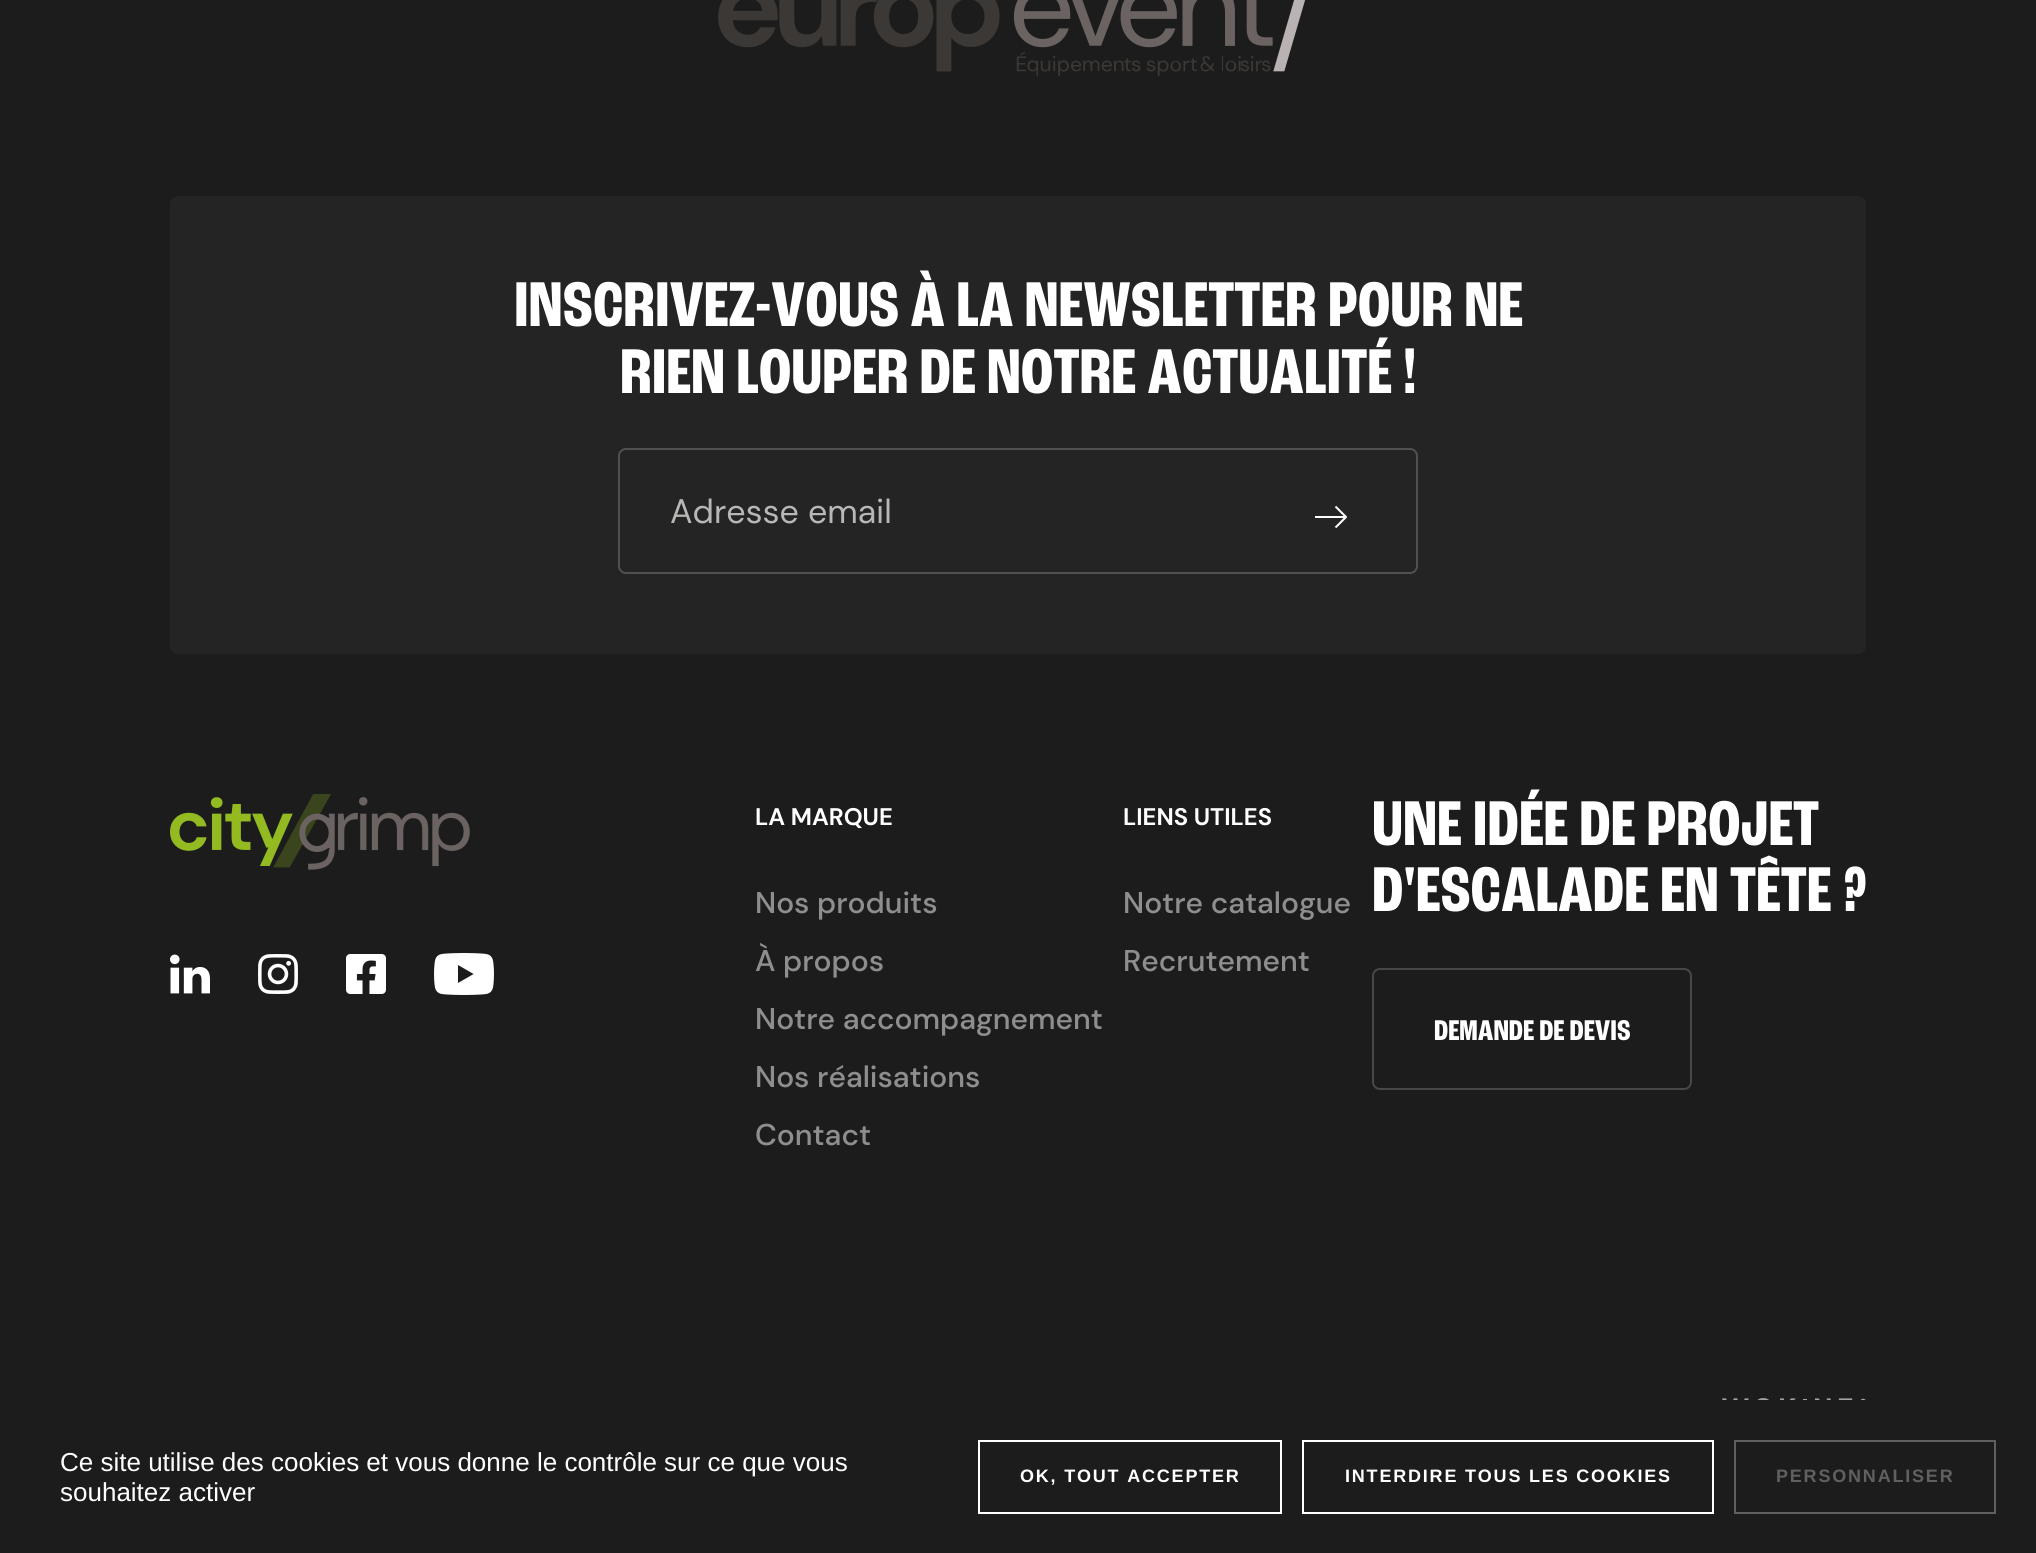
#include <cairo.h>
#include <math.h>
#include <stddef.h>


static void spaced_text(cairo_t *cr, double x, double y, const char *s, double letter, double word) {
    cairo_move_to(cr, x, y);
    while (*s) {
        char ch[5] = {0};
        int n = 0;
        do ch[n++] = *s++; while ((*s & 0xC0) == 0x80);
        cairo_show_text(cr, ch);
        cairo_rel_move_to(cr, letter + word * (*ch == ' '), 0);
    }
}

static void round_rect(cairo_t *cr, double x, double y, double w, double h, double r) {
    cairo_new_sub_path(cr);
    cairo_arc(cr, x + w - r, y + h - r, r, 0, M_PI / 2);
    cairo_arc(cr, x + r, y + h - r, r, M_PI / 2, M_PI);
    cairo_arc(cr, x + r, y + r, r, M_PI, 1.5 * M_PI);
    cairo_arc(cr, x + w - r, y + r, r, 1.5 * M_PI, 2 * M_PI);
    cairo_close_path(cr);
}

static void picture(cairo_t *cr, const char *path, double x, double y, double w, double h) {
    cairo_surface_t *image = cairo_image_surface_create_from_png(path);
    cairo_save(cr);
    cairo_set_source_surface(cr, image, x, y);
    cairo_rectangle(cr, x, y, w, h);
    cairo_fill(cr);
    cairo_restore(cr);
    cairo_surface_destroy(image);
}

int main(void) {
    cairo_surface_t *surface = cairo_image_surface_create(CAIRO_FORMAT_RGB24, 2036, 1553);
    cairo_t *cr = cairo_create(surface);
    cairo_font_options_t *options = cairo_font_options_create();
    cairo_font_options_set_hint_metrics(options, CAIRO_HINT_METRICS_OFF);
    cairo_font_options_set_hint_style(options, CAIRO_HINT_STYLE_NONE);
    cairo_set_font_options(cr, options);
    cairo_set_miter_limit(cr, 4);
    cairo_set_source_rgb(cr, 0.11, 0.11, 0.11);
    cairo_paint(cr);
    picture(cr, "img1.png", 718, 0, 587, 76);
    cairo_set_source_rgb(cr, 0.141, 0.141, 0.141);
    round_rect(cr, 170, 196, 1696, 458, 8);
    cairo_fill(cr);
    cairo_select_font_face(cr, "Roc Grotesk", CAIRO_FONT_SLANT_NORMAL, CAIRO_FONT_WEIGHT_BOLD);
    cairo_set_font_size(cr, 66.4);
    cairo_set_source_rgb(cr, 1, 1, 1);
    cairo_move_to(cr, 514, 326);
    cairo_show_text(cr, "INSCRIVEZ-VOUS À LA NEWSLETTER POUR NE");
    cairo_move_to(cr, 620, 393);
    cairo_show_text(cr, "RIEN LOUPER DE NOTRE ACTUALITÉ !");
    round_rect(cr, 619, 449, 798, 124, 7);
    cairo_set_source_rgb(cr, 0.314, 0.314, 0.314);
    cairo_stroke(cr);
    cairo_select_font_face(cr, "DM Sans", CAIRO_FONT_SLANT_NORMAL, CAIRO_FONT_WEIGHT_NORMAL);
    cairo_set_font_size(cr, 34);
    cairo_set_source_rgb(cr, 0.718, 0.718, 0.71);
    cairo_move_to(cr, 670, 523);
    cairo_show_text(cr, "Adresse email");
    cairo_set_source_rgb(cr, 1, 1, 1);
    cairo_rectangle(cr, 1315, 516, 31, 2);
    cairo_fill(cr);
    cairo_new_path(cr);
    cairo_move_to(cr, 1335.5, 506.5);
    cairo_line_to(cr, 1346, 517);
    cairo_line_to(cr, 1335.5, 527.5);
    cairo_set_line_join(cr, CAIRO_LINE_JOIN_ROUND);
    cairo_stroke(cr);
    picture(cr, "img2.png", 170, 794, 300, 76);
    picture(cr, "img3.png", 170, 954, 40, 40);
    picture(cr, "img4.png", 258, 954, 40, 40);
    picture(cr, "img5.png", 346, 954, 40, 40);
    picture(cr, "img6.png", 434, 953, 60, 42);
    cairo_select_font_face(cr, "DM Sans", CAIRO_FONT_SLANT_NORMAL, CAIRO_FONT_WEIGHT_BOLD);
    cairo_set_font_size(cr, 24);
    cairo_move_to(cr, 755, 825);
    cairo_show_text(cr, "LA MARQUE");
    cairo_select_font_face(cr, "DM Sans Medium", CAIRO_FONT_SLANT_NORMAL, CAIRO_FONT_WEIGHT_NORMAL);
    cairo_set_font_size(cr, 30);
    cairo_set_source_rgb(cr, 0.557, 0.557, 0.557);
    cairo_move_to(cr, 755, 913);
    cairo_show_text(cr, "Nos produits");
    cairo_move_to(cr, 755, 971);
    cairo_show_text(cr, "À propos");
    cairo_move_to(cr, 755, 1029);
    cairo_show_text(cr, "Notre accompagnement");
    cairo_move_to(cr, 755, 1087);
    cairo_show_text(cr, "Nos réalisations");
    cairo_move_to(cr, 755, 1145);
    cairo_show_text(cr, "Contact");
    cairo_select_font_face(cr, "DM Sans", CAIRO_FONT_SLANT_NORMAL, CAIRO_FONT_WEIGHT_BOLD);
    cairo_set_font_size(cr, 24);
    cairo_set_source_rgb(cr, 1, 1, 1);
    cairo_move_to(cr, 1123, 825);
    cairo_show_text(cr, "LIENS UTILES");
    cairo_select_font_face(cr, "DM Sans Medium", CAIRO_FONT_SLANT_NORMAL, CAIRO_FONT_WEIGHT_NORMAL);
    cairo_set_font_size(cr, 30);
    cairo_set_source_rgb(cr, 0.557, 0.557, 0.557);
    cairo_move_to(cr, 1123, 913);
    cairo_show_text(cr, "Notre catalogue");
    cairo_move_to(cr, 1123, 971);
    cairo_show_text(cr, "Recrutement");
    cairo_select_font_face(cr, "Roc Grotesk", CAIRO_FONT_SLANT_NORMAL, CAIRO_FONT_WEIGHT_BOLD);
    cairo_set_font_size(cr, 66.4);
    cairo_set_source_rgb(cr, 1, 1, 1);
    cairo_move_to(cr, 1372, 845);
    cairo_show_text(cr, "UNE IDÉE DE PROJET");
    cairo_move_to(cr, 1372, 911);
    cairo_show_text(cr, "D'ESCALADE EN TÊTE ?");
    round_rect(cr, 1373, 969, 318, 120, 7);
    cairo_set_source_rgb(cr, 0.278, 0.278, 0.275);
    cairo_set_line_join(cr, CAIRO_LINE_JOIN_MITER);
    cairo_stroke(cr);
    cairo_set_font_size(cr, 30);
    cairo_set_source_rgb(cr, 1, 1, 1);
    cairo_move_to(cr, 1434, 1040);
    cairo_show_text(cr, "DEMANDE DE DEVIS");
    picture(cr, "img7.png", 1722, 1398, 144, 2);
    cairo_select_font_face(cr, "Liberation Sans", CAIRO_FONT_SLANT_NORMAL, CAIRO_FONT_WEIGHT_NORMAL);
    cairo_set_font_size(cr, 26);
    cairo_move_to(cr, 60, 1471);
    cairo_show_text(cr, "Ce site utilise des cookies et vous donne le contrôle sur ce que vous");
    cairo_move_to(cr, 60, 1501);
    cairo_show_text(cr, "souhaitez activer");
    cairo_rectangle(cr, 979, 1441, 302, 72);
    cairo_stroke(cr);
    cairo_select_font_face(cr, "Liberation Sans", CAIRO_FONT_SLANT_NORMAL, CAIRO_FONT_WEIGHT_BOLD);
    cairo_set_font_size(cr, 18);
    spaced_text(cr, 1020, 1482, "OK, TOUT ACCEPTER", 1.8, 0);
    cairo_rectangle(cr, 1303, 1441, 410, 72);
    cairo_stroke(cr);
    spaced_text(cr, 1345, 1482, "INTERDIRE TOUS LES COOKIES", 1.8, 0);
    cairo_rectangle(cr, 1735, 1441, 260, 72);
    cairo_set_source_rgb(cr, 0.376, 0.376, 0.376);
    cairo_stroke(cr);
    spaced_text(cr, 1776, 1482, "PERSONNALISER", 1.8, 0);
    cairo_surface_write_to_png(surface, "page.png");
    cairo_font_options_destroy(options);
    cairo_destroy(cr);
    cairo_surface_destroy(surface);
    return 0;
}
